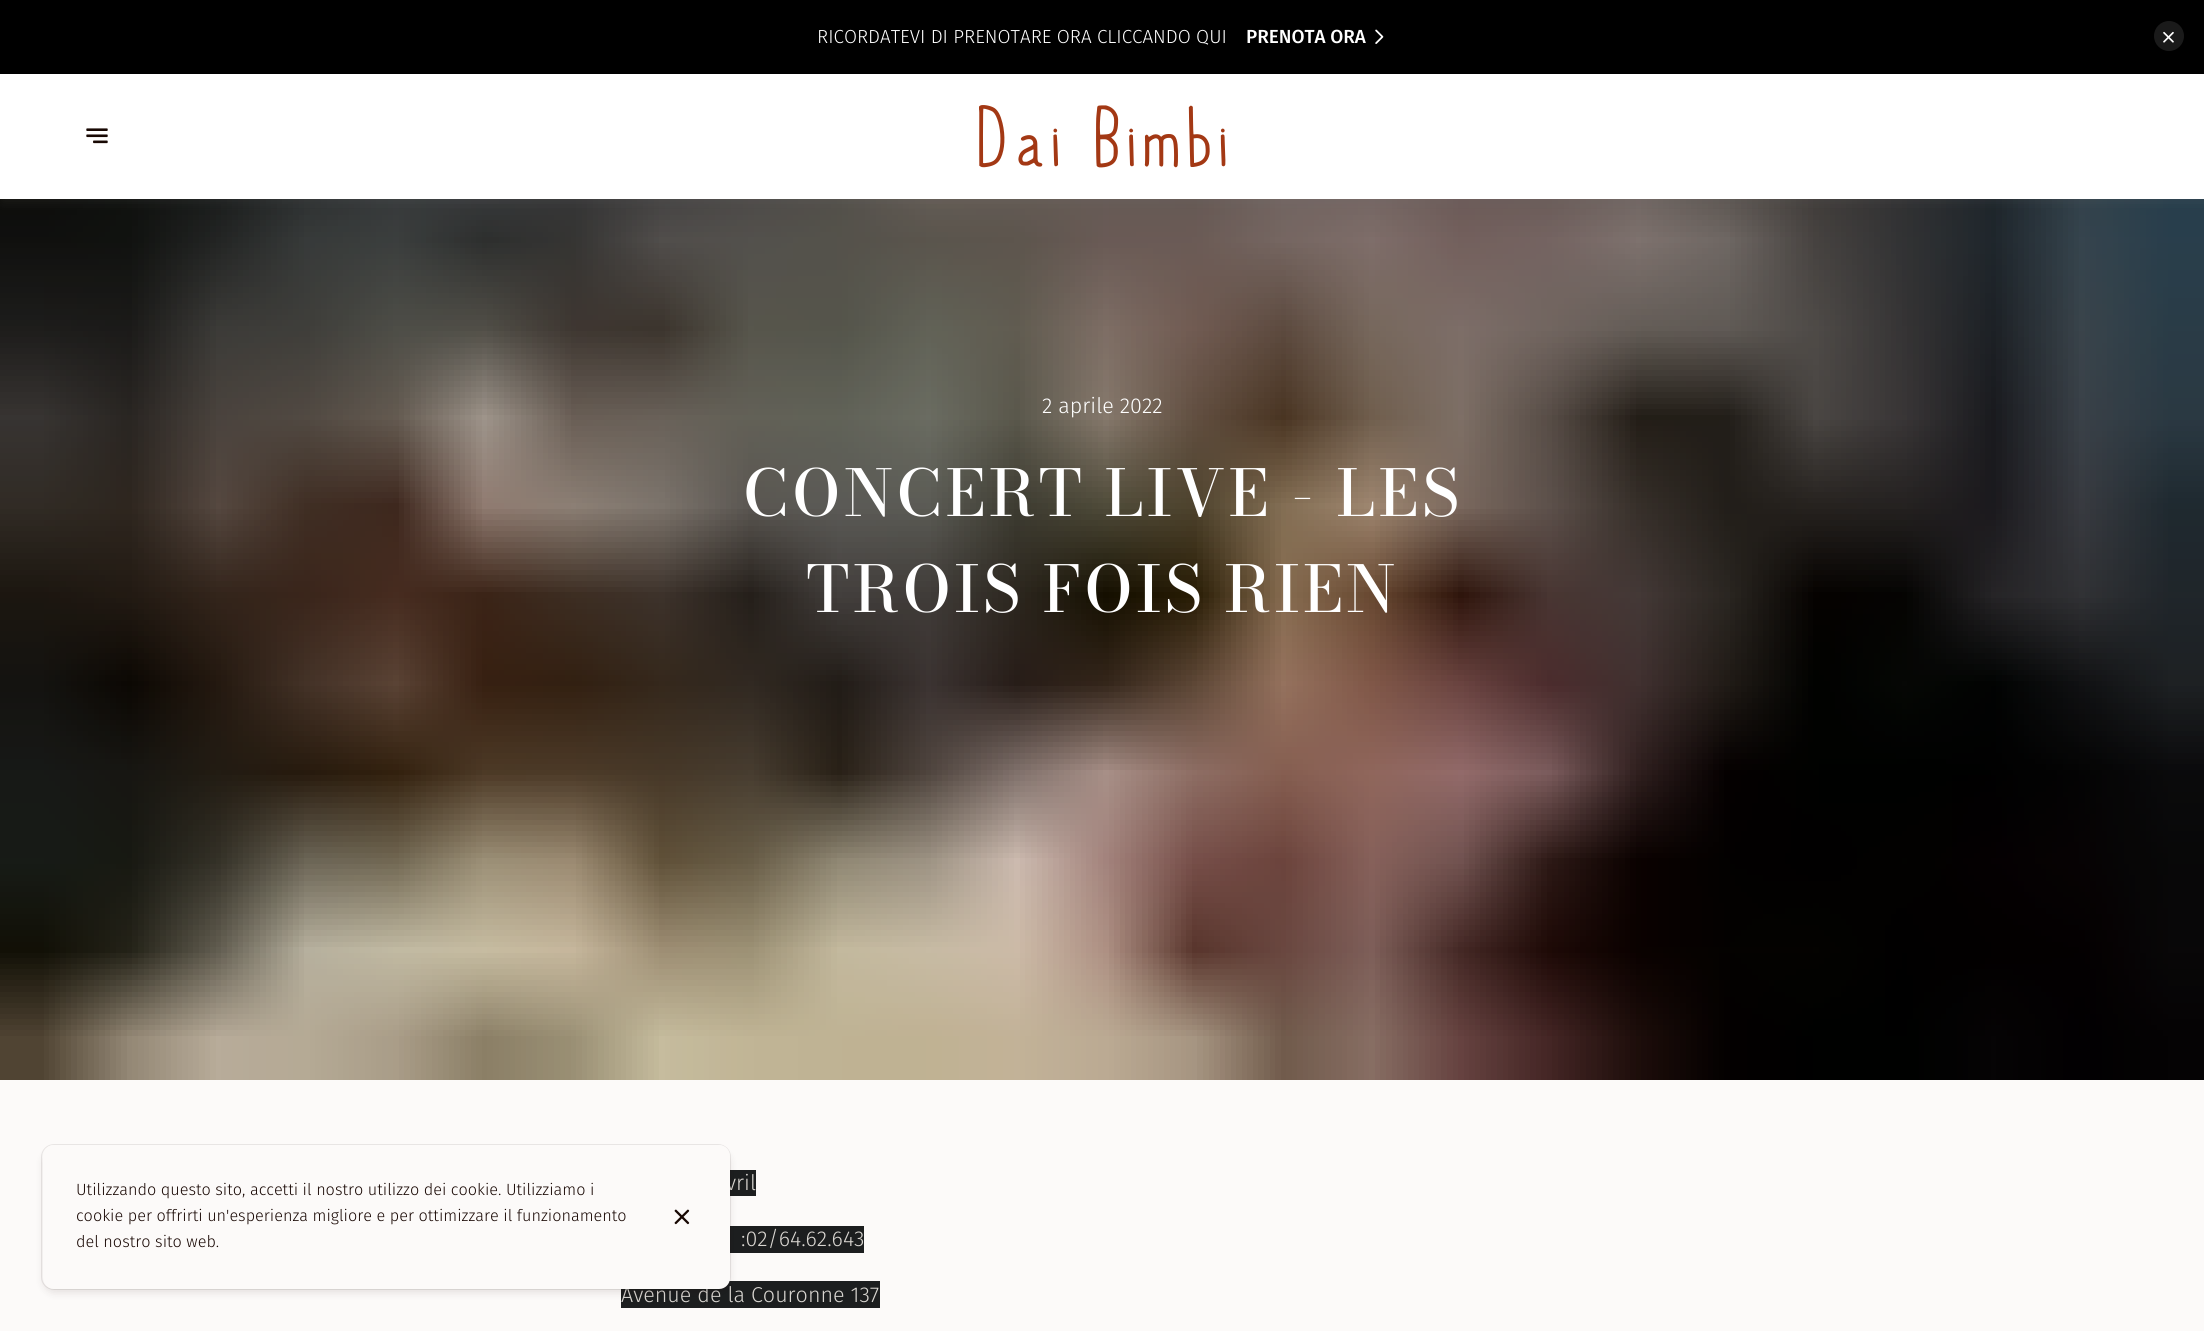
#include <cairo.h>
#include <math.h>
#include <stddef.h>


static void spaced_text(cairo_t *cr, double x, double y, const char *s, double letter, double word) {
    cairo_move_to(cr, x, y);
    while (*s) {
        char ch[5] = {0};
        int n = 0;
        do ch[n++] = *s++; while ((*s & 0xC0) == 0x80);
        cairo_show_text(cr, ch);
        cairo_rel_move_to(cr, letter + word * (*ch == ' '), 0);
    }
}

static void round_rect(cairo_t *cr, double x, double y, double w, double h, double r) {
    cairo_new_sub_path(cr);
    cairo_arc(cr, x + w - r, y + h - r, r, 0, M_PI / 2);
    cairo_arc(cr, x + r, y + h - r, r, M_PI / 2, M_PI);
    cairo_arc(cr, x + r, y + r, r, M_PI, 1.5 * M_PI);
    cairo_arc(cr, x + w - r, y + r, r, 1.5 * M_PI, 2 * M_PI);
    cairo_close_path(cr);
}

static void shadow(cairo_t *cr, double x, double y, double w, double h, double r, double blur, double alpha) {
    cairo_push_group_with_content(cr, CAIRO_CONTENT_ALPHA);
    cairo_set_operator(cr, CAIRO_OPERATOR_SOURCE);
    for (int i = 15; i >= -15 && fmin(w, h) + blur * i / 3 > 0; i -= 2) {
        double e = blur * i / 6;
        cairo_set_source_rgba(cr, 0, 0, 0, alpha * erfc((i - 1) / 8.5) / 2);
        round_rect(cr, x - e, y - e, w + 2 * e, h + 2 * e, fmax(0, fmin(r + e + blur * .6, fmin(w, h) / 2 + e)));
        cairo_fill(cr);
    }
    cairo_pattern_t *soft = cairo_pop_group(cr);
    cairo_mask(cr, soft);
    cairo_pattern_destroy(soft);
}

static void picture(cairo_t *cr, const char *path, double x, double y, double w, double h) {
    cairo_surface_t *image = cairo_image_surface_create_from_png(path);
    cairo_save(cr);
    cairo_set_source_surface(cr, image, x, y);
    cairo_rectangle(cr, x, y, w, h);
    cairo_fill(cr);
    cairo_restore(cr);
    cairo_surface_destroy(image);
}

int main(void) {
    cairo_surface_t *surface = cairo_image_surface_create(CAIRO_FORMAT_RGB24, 2204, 1331);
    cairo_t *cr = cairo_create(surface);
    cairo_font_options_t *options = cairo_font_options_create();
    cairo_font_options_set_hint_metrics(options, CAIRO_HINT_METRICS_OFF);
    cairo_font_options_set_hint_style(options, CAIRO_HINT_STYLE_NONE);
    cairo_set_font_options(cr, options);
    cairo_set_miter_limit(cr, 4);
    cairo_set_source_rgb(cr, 1, 1, 1);
    cairo_paint(cr);
    picture(cr, "img6.png", 0, 199, 2204, 881);
    cairo_set_source_rgb(cr, 0.498, 0.498, 0.498);
    shadow(cr, 3, 3, 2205, 198, 0, 6, 0.15);
    cairo_set_source_rgb(cr, 1, 1, 1);
    cairo_rectangle(cr, 0, 74, 2204, 125);
    cairo_fill(cr);
    cairo_set_source_rgb(cr, 0, 0, 0);
    cairo_rectangle(cr, 0, 0, 2204, 74);
    cairo_fill(cr);
    cairo_select_font_face(cr, "Fira Sans Light", CAIRO_FONT_SLANT_NORMAL, CAIRO_FONT_WEIGHT_NORMAL);
    cairo_set_font_size(cr, 18.9);
    cairo_set_source_rgb(cr, 1, 1, 1);
    cairo_move_to(cr, 817, 43);
    cairo_show_text(cr, "RICORDATEVI DI PRENOTARE ORA CLICCANDO QUI");
    cairo_select_font_face(cr, "Fira Sans Medium", CAIRO_FONT_SLANT_NORMAL, CAIRO_FONT_WEIGHT_NORMAL);
    cairo_move_to(cr, 1246, 43);
    cairo_show_text(cr, "PRENOTA ORA");
    picture(cr, "img1.png", 1375, 29, 9, 15);
    cairo_set_source_rgb(cr, 0.102, 0.102, 0.102);
    cairo_arc(cr, 2169, 36, 15, 0, 2 * M_PI);
    cairo_fill(cr);
    picture(cr, "img2.png", 2163, 31, 11, 12);
    picture(cr, "img3.png", 86, 128, 22, 16);
    picture(cr, "img4.png", 979, 105, 247, 63);
    cairo_set_source_rgb(cr, 0.988, 0.98, 0.976);
    cairo_rectangle(cr, 0, 1080, 2204, 251);
    cairo_fill(cr);
    cairo_set_source_rgb(cr, 0.11, 0.118, 0.122);
    cairo_rectangle(cr, 730, 1170, 26, 26);
    cairo_fill(cr);
    cairo_select_font_face(cr, "Fira Sans Light", CAIRO_FONT_SLANT_NORMAL, CAIRO_FONT_WEIGHT_NORMAL);
    cairo_set_font_size(cr, 21.5);
    cairo_set_source_rgb(cr, 0.851, 0.839, 0.82);
    cairo_move_to(cr, 726, 1190);
    cairo_show_text(cr, "vril");
    cairo_set_source_rgb(cr, 0.11, 0.118, 0.122);
    cairo_rectangle(cr, 730, 1226, 134, 27);
    cairo_fill(cr);
    cairo_rectangle(cr, 621, 1281, 259, 27);
    cairo_fill(cr);
    cairo_set_source_rgb(cr, 0.851, 0.839, 0.82);
    cairo_move_to(cr, 621, 1302);
    cairo_show_text(cr, "Avenue de la Couronne 137");
    round_rect(cr, 41.5, 1144.5, 689, 145, 12.5);
    cairo_set_source_rgba(cr, 0.094, 0.031, 0.012, 0.08);
    cairo_set_line_width(cr, 1);
    cairo_stroke(cr);
    cairo_set_source_rgb(cr, 0.094, 0.031, 0.012);
    shadow(cr, 45, 1153, 683, 138, 9, 5, 0.14);
    cairo_set_source_rgb(cr, 0.988, 0.98, 0.976);
    round_rect(cr, 43, 1145, 687, 144, 11);
    cairo_fill(cr);
    cairo_set_font_size(cr, 16.25);
    cairo_set_source_rgb(cr, 0.094, 0.031, 0.012);
    cairo_move_to(cr, 76, 1195);
    cairo_show_text(cr, "Utilizzando questo sito, accetti il nostro utilizzo dei cookie. Utilizziamo i");
    cairo_move_to(cr, 76, 1221);
    cairo_show_text(cr, "cookie per offrirti un'esperienza migliore e per ottimizzare il funzionamento");
    cairo_move_to(cr, 76, 1247);
    cairo_show_text(cr, "del nostro sito web.");
    picture(cr, "img5.png", 674, 1209, 16, 16);
    cairo_set_font_size(cr, 21.5);
    cairo_set_source_rgb(cr, 1, 1, 1);
    cairo_move_to(cr, 1042, 413);
    cairo_show_text(cr, "2 aprile 2022");
    cairo_select_font_face(cr, "Bodoni Moda Medium", CAIRO_FONT_SLANT_NORMAL, CAIRO_FONT_WEIGHT_NORMAL);
    cairo_set_font_size(cr, 63.9);
    spaced_text(cr, 743, 516, "CONCERT LIVE - LES", 3.2, 0);
    spaced_text(cr, 806, 612, "TROIS FOIS RIEN", 3.2, 0);
    cairo_select_font_face(cr, "Fira Sans Light", CAIRO_FONT_SLANT_NORMAL, CAIRO_FONT_WEIGHT_NORMAL);
    cairo_set_font_size(cr, 21.5);
    cairo_set_source_rgb(cr, 0.851, 0.839, 0.82);
    cairo_move_to(cr, 741, 1246);
    cairo_show_text(cr, ":02/64.62.643");
    cairo_surface_write_to_png(surface, "page.png");
    cairo_font_options_destroy(options);
    cairo_destroy(cr);
    cairo_surface_destroy(surface);
    return 0;
}
